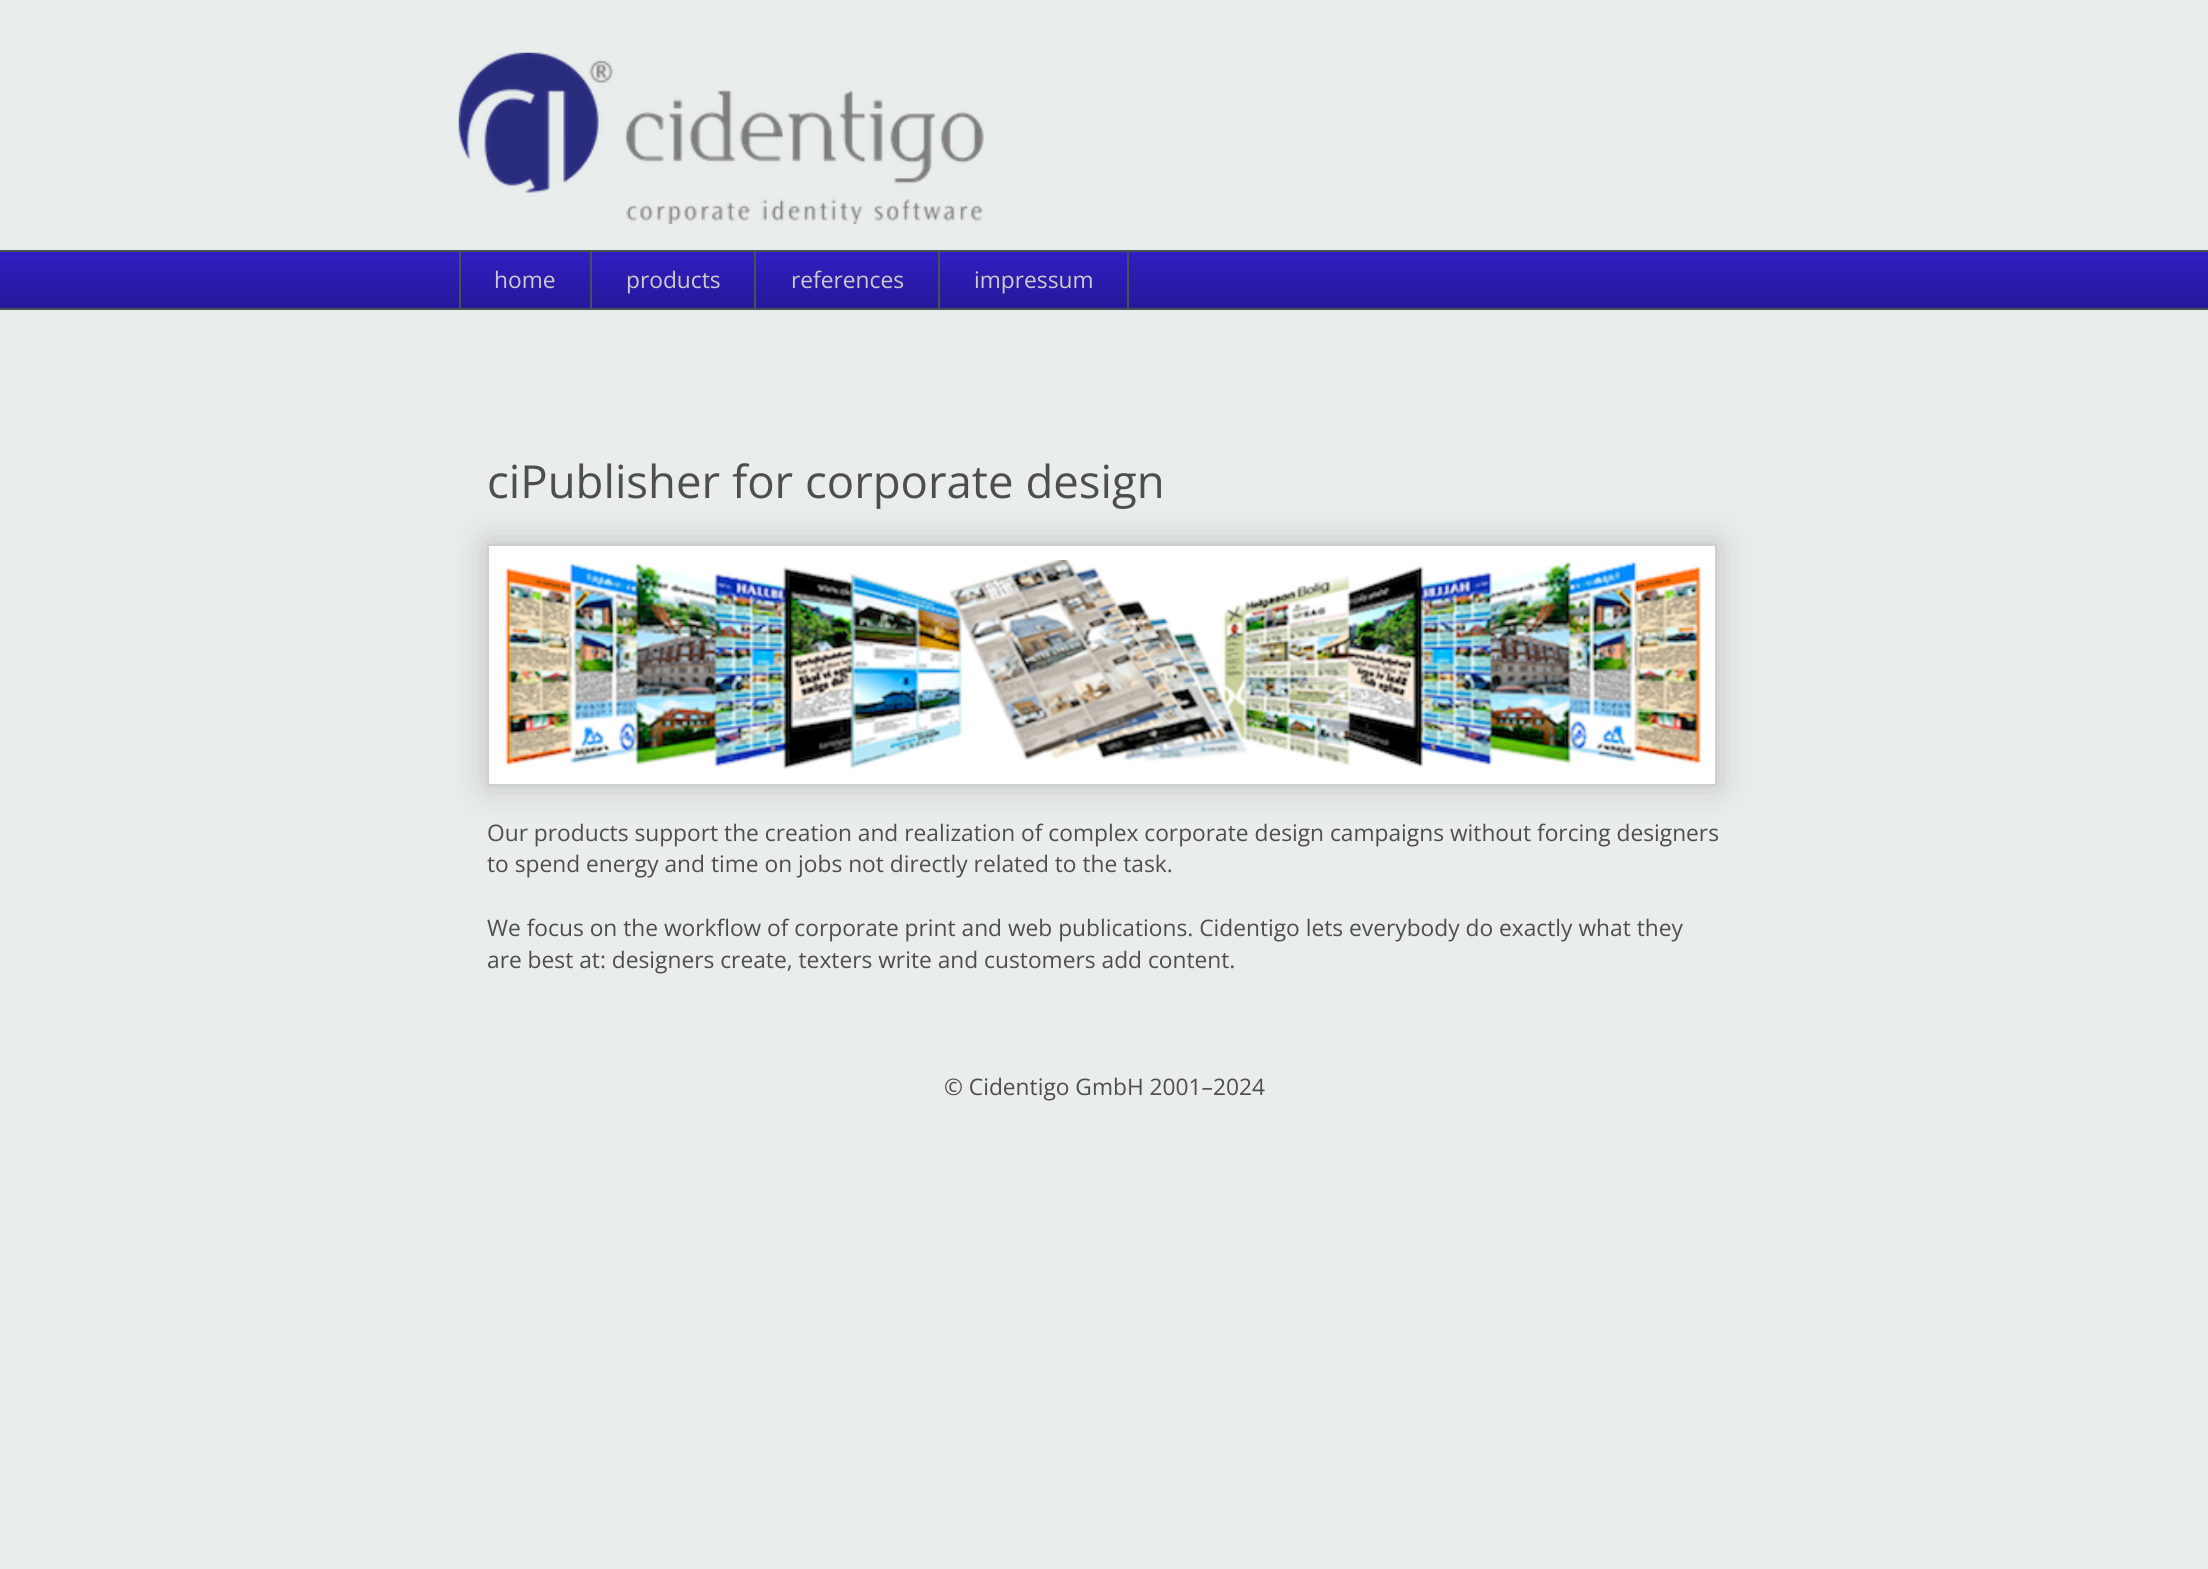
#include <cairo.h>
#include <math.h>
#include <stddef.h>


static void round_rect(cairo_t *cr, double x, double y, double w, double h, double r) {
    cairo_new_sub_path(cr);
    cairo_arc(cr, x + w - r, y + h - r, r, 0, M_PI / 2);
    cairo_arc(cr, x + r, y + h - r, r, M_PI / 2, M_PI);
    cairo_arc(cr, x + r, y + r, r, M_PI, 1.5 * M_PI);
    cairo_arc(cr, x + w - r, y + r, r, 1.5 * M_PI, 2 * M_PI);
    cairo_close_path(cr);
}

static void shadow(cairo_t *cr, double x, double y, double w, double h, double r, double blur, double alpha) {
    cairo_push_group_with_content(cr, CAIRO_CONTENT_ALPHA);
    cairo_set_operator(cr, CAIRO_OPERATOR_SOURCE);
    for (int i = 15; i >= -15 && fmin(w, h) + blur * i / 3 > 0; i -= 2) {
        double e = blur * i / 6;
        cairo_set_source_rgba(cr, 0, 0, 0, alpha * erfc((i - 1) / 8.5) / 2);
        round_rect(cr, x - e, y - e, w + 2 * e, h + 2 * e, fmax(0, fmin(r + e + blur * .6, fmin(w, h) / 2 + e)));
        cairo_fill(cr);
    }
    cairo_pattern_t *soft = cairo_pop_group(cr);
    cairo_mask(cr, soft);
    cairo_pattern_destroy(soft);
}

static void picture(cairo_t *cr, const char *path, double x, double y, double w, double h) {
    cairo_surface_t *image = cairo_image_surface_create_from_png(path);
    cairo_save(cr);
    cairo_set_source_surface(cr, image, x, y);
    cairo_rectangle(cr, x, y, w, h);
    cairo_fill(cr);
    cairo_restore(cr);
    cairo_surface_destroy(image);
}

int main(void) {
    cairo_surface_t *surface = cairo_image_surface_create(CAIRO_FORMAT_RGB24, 2208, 1569);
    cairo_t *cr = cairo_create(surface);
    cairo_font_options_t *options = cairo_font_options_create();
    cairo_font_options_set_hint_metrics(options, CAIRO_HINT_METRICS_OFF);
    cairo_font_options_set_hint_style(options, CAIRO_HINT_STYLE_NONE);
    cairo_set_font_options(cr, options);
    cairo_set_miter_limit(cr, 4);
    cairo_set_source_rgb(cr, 0.914, 0.929, 0.925);
    cairo_paint(cr);
    picture(cr, "img1.png", 458, 52, 526, 172);
    cairo_set_source_rgb(cr, 0.188, 0.118, 0.753);
    cairo_rectangle(cr, 0, 252, 2208, 56);
    cairo_fill(cr);
    picture(cr, "img2.png", 0, 261, 2208, 47);
    cairo_set_source_rgb(cr, 0.275, 0.322, 0.337);
    cairo_rectangle(cr, 0, 250, 2208, 2);
    cairo_fill(cr);
    cairo_rectangle(cr, 459, 250, 2, 60);
    cairo_fill(cr);
    cairo_select_font_face(cr, "Open Sans", CAIRO_FONT_SLANT_NORMAL, CAIRO_FONT_WEIGHT_NORMAL);
    cairo_set_font_size(cr, 22.75);
    cairo_set_source_rgb(cr, 0.8, 0.8, 0.8);
    cairo_move_to(cr, 494, 288);
    cairo_show_text(cr, "home");
    cairo_set_source_rgb(cr, 0.275, 0.322, 0.337);
    cairo_rectangle(cr, 590, 250, 2, 60);
    cairo_fill(cr);
    cairo_set_source_rgb(cr, 0.8, 0.8, 0.8);
    cairo_move_to(cr, 626, 288);
    cairo_show_text(cr, "products");
    cairo_set_source_rgb(cr, 0.275, 0.322, 0.337);
    cairo_rectangle(cr, 754, 250, 2, 60);
    cairo_fill(cr);
    cairo_set_source_rgb(cr, 0.8, 0.8, 0.8);
    cairo_move_to(cr, 791, 288);
    cairo_show_text(cr, "references");
    cairo_rectangle(cr, 939, 251, 189, 58);
    cairo_set_source_rgb(cr, 0.275, 0.322, 0.337);
    cairo_stroke(cr);
    cairo_set_source_rgb(cr, 0.8, 0.8, 0.8);
    cairo_move_to(cr, 974, 288);
    cairo_show_text(cr, "impressum");
    cairo_set_source_rgb(cr, 0.275, 0.322, 0.337);
    cairo_rectangle(cr, 0, 308, 2208, 2);
    cairo_fill(cr);
    cairo_set_font_size(cr, 45.5);
    cairo_set_source_rgb(cr, 0.306, 0.306, 0.306);
    cairo_move_to(cr, 487, 498);
    cairo_show_text(cr, "ciPublisher for corporate design");
    cairo_set_source_rgb(cr, 0, 0, 0);
    shadow(cr, 487, 544, 1230, 242, 0, 17.5, 0.2);
    cairo_set_source_rgb(cr, 1, 1, 1);
    cairo_rectangle(cr, 488, 545, 1228, 240);
    cairo_fill_preserve(cr);
    cairo_set_source_rgb(cr, 0.812, 0.812, 0.812);
    cairo_stroke(cr);
    picture(cr, "img3.png", 505, 560, 1196, 209);
    cairo_set_font_size(cr, 22.75);
    cairo_set_source_rgb(cr, 0.306, 0.306, 0.306);
    cairo_move_to(cr, 487, 841);
    cairo_show_text(cr, "Our products support the creation and realization of complex corporate design campaigns without forcing designers");
    cairo_move_to(cr, 487, 872);
    cairo_show_text(cr, "to spend energy and time on jobs not directly related to the task.");
    cairo_move_to(cr, 487, 936);
    cairo_show_text(cr, "We focus on the workflow of corporate print and web publications. Cidentigo lets everybody do exactly what they");
    cairo_move_to(cr, 487, 968);
    cairo_show_text(cr, "are best at: designers create, texters write and customers add content.");
    cairo_move_to(cr, 944, 1095);
    cairo_show_text(cr, "© Cidentigo GmbH 2001–2024");
    cairo_surface_write_to_png(surface, "page.png");
    cairo_font_options_destroy(options);
    cairo_destroy(cr);
    cairo_surface_destroy(surface);
    return 0;
}
